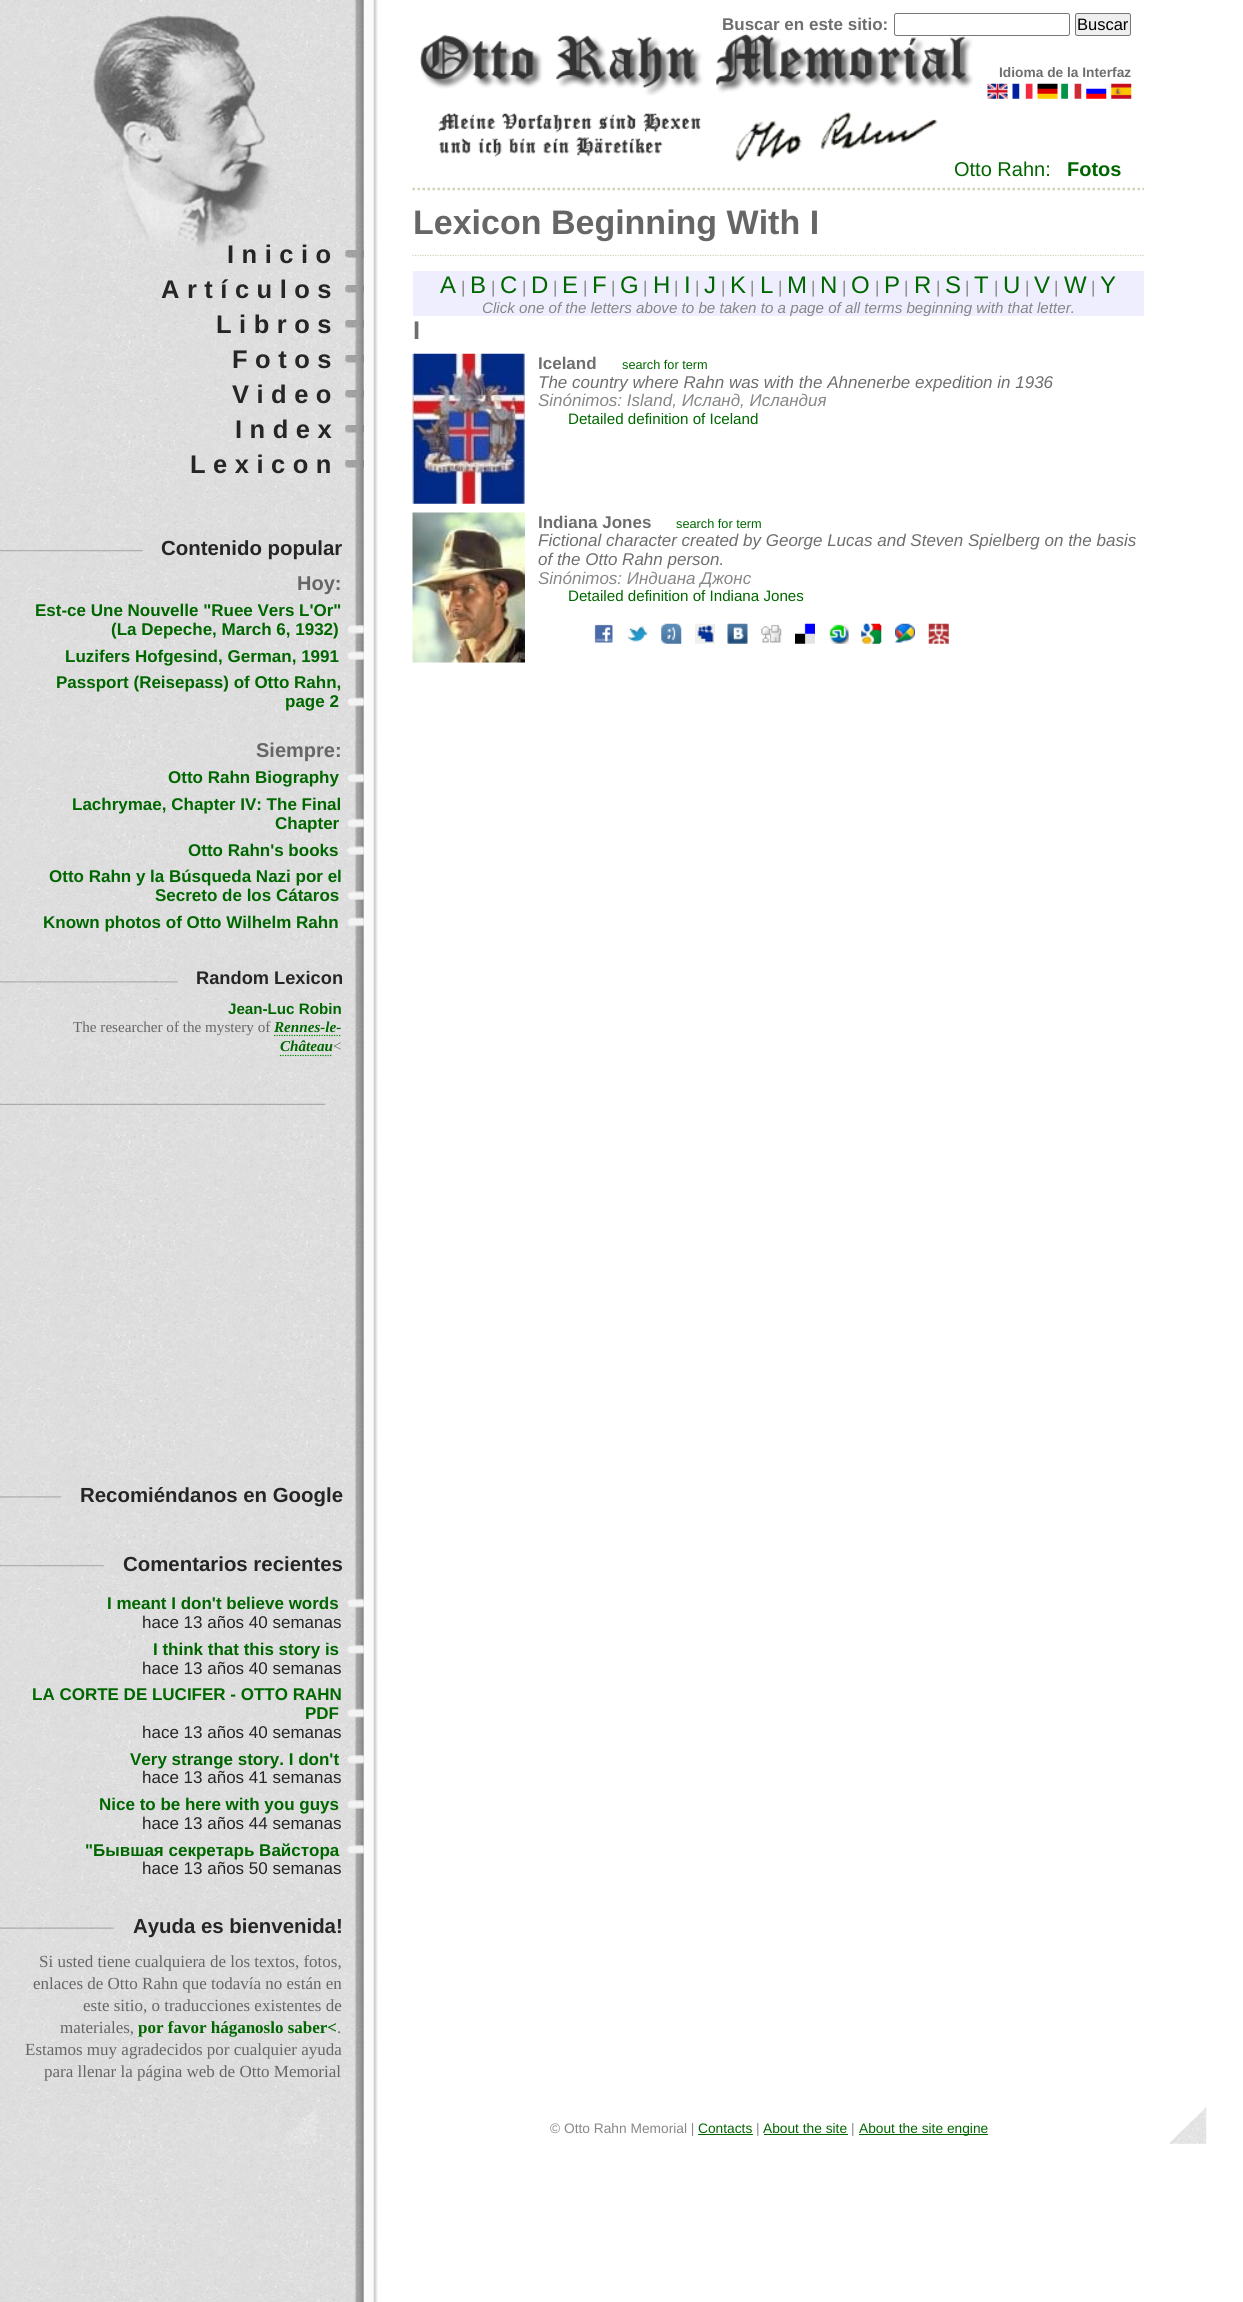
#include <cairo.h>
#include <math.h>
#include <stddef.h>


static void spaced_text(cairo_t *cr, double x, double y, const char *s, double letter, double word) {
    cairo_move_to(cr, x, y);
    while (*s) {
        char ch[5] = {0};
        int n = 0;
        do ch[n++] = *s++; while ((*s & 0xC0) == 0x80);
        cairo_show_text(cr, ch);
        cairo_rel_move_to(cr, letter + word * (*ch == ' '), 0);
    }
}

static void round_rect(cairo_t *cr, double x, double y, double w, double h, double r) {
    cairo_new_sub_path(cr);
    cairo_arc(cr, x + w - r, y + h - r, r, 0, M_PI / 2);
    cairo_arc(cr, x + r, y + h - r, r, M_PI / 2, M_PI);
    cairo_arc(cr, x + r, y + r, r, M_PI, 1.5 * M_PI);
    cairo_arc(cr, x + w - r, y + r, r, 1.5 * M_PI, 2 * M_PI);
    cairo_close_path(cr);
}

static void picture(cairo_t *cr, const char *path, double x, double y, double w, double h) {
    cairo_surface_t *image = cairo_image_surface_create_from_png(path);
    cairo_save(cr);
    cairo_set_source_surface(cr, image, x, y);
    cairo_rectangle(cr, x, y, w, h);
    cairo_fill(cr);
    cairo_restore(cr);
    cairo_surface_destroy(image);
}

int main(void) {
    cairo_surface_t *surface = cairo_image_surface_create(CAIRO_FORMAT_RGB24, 1243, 2302);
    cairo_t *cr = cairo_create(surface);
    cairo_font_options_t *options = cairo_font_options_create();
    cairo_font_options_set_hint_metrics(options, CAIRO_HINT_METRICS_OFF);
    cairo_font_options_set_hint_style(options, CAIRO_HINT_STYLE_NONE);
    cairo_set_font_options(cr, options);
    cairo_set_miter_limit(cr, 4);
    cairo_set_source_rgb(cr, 1, 1, 1);
    cairo_paint(cr);
    picture(cr, "img1.png", 0, 0, 378, 2302);
    picture(cr, "img2.png", 93, 15, 185, 251);
    cairo_new_path(cr);
    cairo_move_to(cr, 412.5, 189);
    cairo_line_to(cr, 1144, 189);
    cairo_set_source_rgb(cr, 0.824, 0.824, 0.733);
    cairo_set_line_width(cr, 2.5);
    cairo_set_dash(cr, (double[]){2.5, 2.5}, 2, 0);
    cairo_stroke(cr);
    cairo_select_font_face(cr, "Liberation Sans", CAIRO_FONT_SLANT_NORMAL, CAIRO_FONT_WEIGHT_BOLD);
    cairo_set_font_size(cr, 17);
    cairo_set_source_rgb(cr, 0.431, 0.431, 0.431);
    cairo_move_to(cr, 722, 30);
    cairo_show_text(cr, "Buscar en este sitio:");
    picture(cr, "img3.png", 420, 33, 553, 129);
    round_rect(cr, 894.5, 13.5, 175, 22, 2);
    cairo_set_source_rgb(cr, 0.463, 0.463, 0.463);
    cairo_set_line_width(cr, 1);
    cairo_set_dash(cr, NULL, 0, 0);
    cairo_stroke(cr);
    cairo_set_source_rgb(cr, 0.937, 0.937, 0.937);
    round_rect(cr, 1075.5, 13.5, 55, 22, 2);
    cairo_fill_preserve(cr);
    cairo_set_source_rgb(cr, 0.463, 0.463, 0.463);
    cairo_stroke(cr);
    cairo_select_font_face(cr, "Liberation Sans", CAIRO_FONT_SLANT_NORMAL, CAIRO_FONT_WEIGHT_NORMAL);
    cairo_set_font_size(cr, 16.5);
    cairo_set_source_rgb(cr, 0, 0, 0);
    cairo_move_to(cr, 1077, 30);
    cairo_show_text(cr, "Buscar");
    cairo_select_font_face(cr, "Liberation Sans", CAIRO_FONT_SLANT_NORMAL, CAIRO_FONT_WEIGHT_BOLD);
    cairo_set_font_size(cr, 13.75);
    cairo_set_source_rgb(cr, 0.431, 0.431, 0.431);
    cairo_move_to(cr, 999, 77);
    cairo_show_text(cr, "Idioma de la Interfaz");
    picture(cr, "img4.png", 987, 83, 21, 16);
    picture(cr, "img5.png", 1012, 83, 21, 16);
    picture(cr, "img6.png", 1037, 83, 21, 16);
    picture(cr, "img7.png", 1061, 83, 21, 16);
    picture(cr, "img8.png", 1086, 88, 21, 11);
    picture(cr, "img9.png", 1111, 83, 21, 16);
    cairo_select_font_face(cr, "Liberation Sans", CAIRO_FONT_SLANT_NORMAL, CAIRO_FONT_WEIGHT_NORMAL);
    cairo_set_font_size(cr, 20);
    cairo_set_source_rgb(cr, 0, 0.4, 0);
    cairo_move_to(cr, 954, 176);
    cairo_show_text(cr, "Otto Rahn:");
    cairo_select_font_face(cr, "Liberation Sans", CAIRO_FONT_SLANT_NORMAL, CAIRO_FONT_WEIGHT_BOLD);
    cairo_move_to(cr, 1067, 176);
    cairo_show_text(cr, "Fotos");
    cairo_set_font_size(cr, 25.5);
    cairo_set_source_rgb(cr, 0.145, 0.145, 0.145);
    spaced_text(cr, 227, 263, "Inicio", 7.5, 0);
    picture(cr, "img10.png", 345, 250, 19, 8);
    spaced_text(cr, 161, 298, "Artículos", 7.5, 0);
    picture(cr, "img11.png", 345, 285, 19, 8);
    spaced_text(cr, 216, 333, "Libros", 7.5, 0);
    picture(cr, "img12.png", 345, 320, 19, 8);
    spaced_text(cr, 232, 368, "Fotos", 7.5, 0);
    picture(cr, "img13.png", 345, 355, 19, 8);
    spaced_text(cr, 232, 403, "Video", 7.5, 0);
    picture(cr, "img14.png", 345, 390, 19, 8);
    spaced_text(cr, 235, 438, "Index", 7.5, 0);
    picture(cr, "img15.png", 345, 425, 19, 8);
    spaced_text(cr, 190, 473, "Lexicon", 7.5, 0);
    picture(cr, "img16.png", 345, 460, 19, 8);
    picture(cr, "img17.png", 0, 528, 325, 24);
    picture(cr, "img18.png", 142, 536, 213, 24);
    cairo_set_font_size(cr, 20.4);
    cairo_move_to(cr, 161, 555);
    cairo_show_text(cr, "Contenido popular");
    cairo_set_font_size(cr, 20);
    cairo_set_source_rgb(cr, 0.4, 0.4, 0.4);
    cairo_move_to(cr, 297, 590);
    cairo_show_text(cr, "Hoy:");
    cairo_set_font_size(cr, 17);
    cairo_set_source_rgb(cr, 0, 0.4, 0);
    cairo_move_to(cr, 35, 616);
    cairo_show_text(cr, "Est-ce Une Nouvelle \"Ruee Vers L'Or\"");
    cairo_move_to(cr, 111, 635);
    cairo_show_text(cr, "(La Depeche, March 6, 1932)");
    picture(cr, "img19.png", 347, 625, 17, 9);
    cairo_move_to(cr, 65, 662);
    cairo_show_text(cr, "Luzifers Hofgesind, German, 1991");
    picture(cr, "img20.png", 347, 651, 17, 9);
    cairo_move_to(cr, 56, 688);
    cairo_show_text(cr, "Passport (Reisepass) of Otto Rahn,");
    cairo_move_to(cr, 285, 707);
    cairo_show_text(cr, "page 2");
    picture(cr, "img21.png", 347, 697, 17, 10);
    cairo_set_font_size(cr, 20);
    cairo_set_source_rgb(cr, 0.4, 0.4, 0.4);
    cairo_move_to(cr, 256, 757);
    cairo_show_text(cr, "Siempre:");
    cairo_set_font_size(cr, 17);
    cairo_set_source_rgb(cr, 0, 0.4, 0);
    cairo_move_to(cr, 168, 783);
    cairo_show_text(cr, "Otto Rahn Biography");
    picture(cr, "img22.png", 347, 773, 17, 10);
    cairo_move_to(cr, 72, 810);
    cairo_show_text(cr, "Lachrymae, Chapter IV: The Final");
    cairo_move_to(cr, 275, 829);
    cairo_show_text(cr, "Chapter");
    picture(cr, "img23.png", 347, 818, 17, 10);
    cairo_move_to(cr, 188, 856);
    cairo_show_text(cr, "Otto Rahn's books");
    picture(cr, "img24.png", 347, 846, 17, 9);
    cairo_move_to(cr, 49, 882);
    cairo_show_text(cr, "Otto Rahn y la Búsqueda Nazi por el");
    cairo_move_to(cr, 155, 901);
    cairo_show_text(cr, "Secreto de los Cátaros");
    picture(cr, "img25.png", 347, 891, 17, 9);
    cairo_move_to(cr, 43, 928);
    cairo_show_text(cr, "Known photos of Otto Wilhelm Rahn");
    picture(cr, "img26.png", 347, 917, 17, 10);
    picture(cr, "img27.png", 0, 960, 325, 23);
    picture(cr, "img28.png", 177, 967, 178, 21);
    cairo_set_font_size(cr, 18.25);
    cairo_set_source_rgb(cr, 0.145, 0.145, 0.145);
    cairo_move_to(cr, 196, 984);
    cairo_show_text(cr, "Random Lexicon");
    cairo_set_font_size(cr, 15.15);
    cairo_set_source_rgb(cr, 0, 0.4, 0);
    cairo_move_to(cr, 228, 1014);
    cairo_show_text(cr, "Jean-Luc Robin");
    cairo_select_font_face(cr, "Liberation Serif", CAIRO_FONT_SLANT_NORMAL, CAIRO_FONT_WEIGHT_NORMAL);
    cairo_set_source_rgb(cr, 0.4, 0.4, 0.4);
    cairo_move_to(cr, 73, 1032);
    cairo_show_text(cr, "The researcher of the mystery of");
    cairo_select_font_face(cr, "Liberation Serif", CAIRO_FONT_SLANT_ITALIC, CAIRO_FONT_WEIGHT_BOLD);
    cairo_set_source_rgb(cr, 0, 0.4, 0);
    cairo_move_to(cr, 274, 1032);
    cairo_show_text(cr, "Rennes-le-");
    cairo_new_path(cr);
    cairo_move_to(cr, 274, 1035.5);
    cairo_line_to(cr, 341, 1035.5);
    cairo_set_source_rgb(cr, 0, 0.533, 0);
    cairo_set_line_width(cr, 1.2);
    cairo_set_dash(cr, (double[]){1.25, 1.25}, 2, 0);
    cairo_stroke(cr);
    cairo_set_source_rgb(cr, 0, 0.4, 0);
    cairo_move_to(cr, 280, 1051);
    cairo_show_text(cr, "Château");
    cairo_new_path(cr);
    cairo_move_to(cr, 280, 1055.5);
    cairo_line_to(cr, 332.5, 1055.5);
    cairo_set_source_rgb(cr, 0, 0.533, 0);
    cairo_stroke(cr);
    cairo_select_font_face(cr, "Liberation Serif", CAIRO_FONT_SLANT_NORMAL, CAIRO_FONT_WEIGHT_NORMAL);
    cairo_set_source_rgb(cr, 0.4, 0.4, 0.4);
    cairo_move_to(cr, 333, 1051);
    cairo_show_text(cr, "<");
    picture(cr, "img29.png", 0, 1082, 325, 23);
    picture(cr, "img30.png", 0, 1475, 325, 23);
    picture(cr, "img31.png", 61, 1482, 294, 24);
    cairo_select_font_face(cr, "Liberation Sans", CAIRO_FONT_SLANT_NORMAL, CAIRO_FONT_WEIGHT_BOLD);
    cairo_set_font_size(cr, 20.4);
    cairo_set_source_rgb(cr, 0.145, 0.145, 0.145);
    cairo_move_to(cr, 80, 1502);
    cairo_show_text(cr, "Recomiéndanos en Google");
    picture(cr, "img32.png", 0, 1543, 325, 24);
    picture(cr, "img33.png", 103, 1551, 252, 24);
    cairo_move_to(cr, 123, 1571);
    cairo_show_text(cr, "Comentarios recientes");
    cairo_set_font_size(cr, 17);
    cairo_set_source_rgb(cr, 0, 0.4, 0);
    cairo_move_to(cr, 107, 1609);
    cairo_show_text(cr, "I meant I don't believe words");
    picture(cr, "img34.png", 347, 1598, 17, 10);
    cairo_select_font_face(cr, "Liberation Sans", CAIRO_FONT_SLANT_NORMAL, CAIRO_FONT_WEIGHT_NORMAL);
    cairo_set_source_rgb(cr, 0.145, 0.145, 0.145);
    cairo_move_to(cr, 142, 1628);
    cairo_show_text(cr, "hace 13 años 40 semanas");
    cairo_select_font_face(cr, "Liberation Sans", CAIRO_FONT_SLANT_NORMAL, CAIRO_FONT_WEIGHT_BOLD);
    cairo_set_source_rgb(cr, 0, 0.4, 0);
    cairo_move_to(cr, 153, 1655);
    cairo_show_text(cr, "I think that this story is");
    picture(cr, "img35.png", 347, 1645, 17, 9);
    cairo_select_font_face(cr, "Liberation Sans", CAIRO_FONT_SLANT_NORMAL, CAIRO_FONT_WEIGHT_NORMAL);
    cairo_set_source_rgb(cr, 0.145, 0.145, 0.145);
    cairo_move_to(cr, 142, 1674);
    cairo_show_text(cr, "hace 13 años 40 semanas");
    cairo_select_font_face(cr, "Liberation Sans", CAIRO_FONT_SLANT_NORMAL, CAIRO_FONT_WEIGHT_BOLD);
    cairo_set_source_rgb(cr, 0, 0.4, 0);
    cairo_move_to(cr, 32, 1700);
    cairo_show_text(cr, "LA CORTE DE LUCIFER - OTTO RAHN");
    cairo_move_to(cr, 305, 1719);
    cairo_show_text(cr, "PDF");
    picture(cr, "img36.png", 347, 1708, 17, 10);
    cairo_select_font_face(cr, "Liberation Sans", CAIRO_FONT_SLANT_NORMAL, CAIRO_FONT_WEIGHT_NORMAL);
    cairo_set_source_rgb(cr, 0.145, 0.145, 0.145);
    cairo_move_to(cr, 142, 1738);
    cairo_show_text(cr, "hace 13 años 40 semanas");
    cairo_select_font_face(cr, "Liberation Sans", CAIRO_FONT_SLANT_NORMAL, CAIRO_FONT_WEIGHT_BOLD);
    cairo_set_source_rgb(cr, 0, 0.4, 0);
    cairo_move_to(cr, 130, 1765);
    cairo_show_text(cr, "Very strange story. I don't");
    picture(cr, "img37.png", 347, 1755, 17, 9);
    cairo_select_font_face(cr, "Liberation Sans", CAIRO_FONT_SLANT_NORMAL, CAIRO_FONT_WEIGHT_NORMAL);
    cairo_set_source_rgb(cr, 0.145, 0.145, 0.145);
    cairo_move_to(cr, 142, 1783);
    cairo_show_text(cr, "hace 13 años 41 semanas");
    cairo_select_font_face(cr, "Liberation Sans", CAIRO_FONT_SLANT_NORMAL, CAIRO_FONT_WEIGHT_BOLD);
    cairo_set_source_rgb(cr, 0, 0.4, 0);
    cairo_move_to(cr, 99, 1810);
    cairo_show_text(cr, "Nice to be here with you guys");
    picture(cr, "img38.png", 347, 1800, 17, 9);
    cairo_select_font_face(cr, "Liberation Sans", CAIRO_FONT_SLANT_NORMAL, CAIRO_FONT_WEIGHT_NORMAL);
    cairo_set_source_rgb(cr, 0.145, 0.145, 0.145);
    cairo_move_to(cr, 142, 1829);
    cairo_show_text(cr, "hace 13 años 44 semanas");
    cairo_select_font_face(cr, "Liberation Sans", CAIRO_FONT_SLANT_NORMAL, CAIRO_FONT_WEIGHT_BOLD);
    cairo_set_source_rgb(cr, 0, 0.4, 0);
    cairo_move_to(cr, 85, 1856);
    cairo_show_text(cr, "\"Бывшая секретарь Вайстора");
    picture(cr, "img35.png", 347, 1845, 17, 9);
    cairo_select_font_face(cr, "Liberation Sans", CAIRO_FONT_SLANT_NORMAL, CAIRO_FONT_WEIGHT_NORMAL);
    cairo_set_source_rgb(cr, 0.145, 0.145, 0.145);
    cairo_move_to(cr, 142, 1874);
    cairo_show_text(cr, "hace 13 años 50 semanas");
    picture(cr, "img39.png", 0, 1906, 325, 23);
    picture(cr, "img40.png", 113, 1914, 242, 24);
    cairo_select_font_face(cr, "Liberation Sans", CAIRO_FONT_SLANT_NORMAL, CAIRO_FONT_WEIGHT_BOLD);
    cairo_set_font_size(cr, 20.4);
    cairo_move_to(cr, 133, 1933);
    cairo_show_text(cr, "Ayuda es bienvenida!");
    cairo_select_font_face(cr, "Liberation Serif", CAIRO_FONT_SLANT_NORMAL, CAIRO_FONT_WEIGHT_NORMAL);
    cairo_set_font_size(cr, 17);
    cairo_set_source_rgb(cr, 0.4, 0.4, 0.4);
    cairo_move_to(cr, 39, 1967);
    cairo_show_text(cr, "Si usted tiene cualquiera de los textos, fotos,");
    cairo_move_to(cr, 33, 1989);
    cairo_show_text(cr, "enlaces de Otto Rahn que todavía no están en");
    cairo_move_to(cr, 83, 2011);
    cairo_show_text(cr, "este sitio, o traducciones existentes de");
    cairo_move_to(cr, 60, 2033);
    cairo_show_text(cr, "materiales,");
    cairo_select_font_face(cr, "Liberation Serif", CAIRO_FONT_SLANT_NORMAL, CAIRO_FONT_WEIGHT_BOLD);
    cairo_set_source_rgb(cr, 0, 0.4, 0);
    cairo_move_to(cr, 138, 2033);
    cairo_show_text(cr, "por favor háganoslo saber<");
    cairo_select_font_face(cr, "Liberation Serif", CAIRO_FONT_SLANT_NORMAL, CAIRO_FONT_WEIGHT_NORMAL);
    cairo_set_source_rgb(cr, 0.4, 0.4, 0.4);
    cairo_move_to(cr, 337, 2033);
    cairo_show_text(cr, ".");
    cairo_move_to(cr, 25, 2055);
    cairo_show_text(cr, "Estamos muy agradecidos por cualquier ayuda");
    cairo_move_to(cr, 44, 2077);
    cairo_show_text(cr, "para llenar la página web de Otto Memorial");
    cairo_new_path(cr);
    cairo_move_to(cr, 412.5, 255.5);
    cairo_line_to(cr, 1144, 255.5);
    cairo_set_source_rgb(cr, 0.824, 0.824, 0.733);
    cairo_stroke(cr);
    cairo_select_font_face(cr, "Liberation Sans", CAIRO_FONT_SLANT_NORMAL, CAIRO_FONT_WEIGHT_BOLD);
    cairo_set_font_size(cr, 34);
    cairo_set_source_rgb(cr, 0.4, 0.4, 0.4);
    cairo_move_to(cr, 413, 234);
    cairo_show_text(cr, "Lexicon Beginning With I");
    cairo_set_source_rgb(cr, 0.933, 0.933, 1);
    cairo_rectangle(cr, 413, 271, 731, 45);
    cairo_fill(cr);
    cairo_select_font_face(cr, "Liberation Sans", CAIRO_FONT_SLANT_NORMAL, CAIRO_FONT_WEIGHT_NORMAL);
    cairo_set_font_size(cr, 24);
    cairo_set_source_rgb(cr, 0, 0.4, 0);
    cairo_move_to(cr, 440, 293);
    cairo_show_text(cr, "A");
    cairo_set_font_size(cr, 17);
    cairo_set_source_rgb(cr, 0.529, 0.529, 0.529);
    cairo_move_to(cr, 461, 293);
    cairo_show_text(cr, "|");
    cairo_set_font_size(cr, 24);
    cairo_set_source_rgb(cr, 0, 0.4, 0);
    cairo_move_to(cr, 470, 293);
    cairo_show_text(cr, "B");
    cairo_set_font_size(cr, 17);
    cairo_set_source_rgb(cr, 0.529, 0.529, 0.529);
    cairo_move_to(cr, 491, 293);
    cairo_show_text(cr, "|");
    cairo_set_font_size(cr, 24);
    cairo_set_source_rgb(cr, 0, 0.4, 0);
    cairo_move_to(cr, 500, 293);
    cairo_show_text(cr, "C");
    cairo_set_font_size(cr, 17);
    cairo_set_source_rgb(cr, 0.529, 0.529, 0.529);
    cairo_move_to(cr, 522, 293);
    cairo_show_text(cr, "|");
    cairo_set_font_size(cr, 24);
    cairo_set_source_rgb(cr, 0, 0.4, 0);
    cairo_move_to(cr, 531, 293);
    cairo_show_text(cr, "D");
    cairo_set_font_size(cr, 17);
    cairo_set_source_rgb(cr, 0.529, 0.529, 0.529);
    cairo_move_to(cr, 553, 293);
    cairo_show_text(cr, "|");
    cairo_set_font_size(cr, 24);
    cairo_set_source_rgb(cr, 0, 0.4, 0);
    cairo_move_to(cr, 562, 293);
    cairo_show_text(cr, "E");
    cairo_set_font_size(cr, 17);
    cairo_set_source_rgb(cr, 0.529, 0.529, 0.529);
    cairo_move_to(cr, 583, 293);
    cairo_show_text(cr, "|");
    cairo_set_font_size(cr, 24);
    cairo_set_source_rgb(cr, 0, 0.4, 0);
    cairo_move_to(cr, 592, 293);
    cairo_show_text(cr, "F");
    cairo_set_font_size(cr, 17);
    cairo_set_source_rgb(cr, 0.529, 0.529, 0.529);
    cairo_move_to(cr, 611, 293);
    cairo_show_text(cr, "|");
    cairo_set_font_size(cr, 24);
    cairo_set_source_rgb(cr, 0, 0.4, 0);
    cairo_move_to(cr, 620, 293);
    cairo_show_text(cr, "G");
    cairo_set_font_size(cr, 17);
    cairo_set_source_rgb(cr, 0.529, 0.529, 0.529);
    cairo_move_to(cr, 643, 293);
    cairo_show_text(cr, "|");
    cairo_set_font_size(cr, 24);
    cairo_set_source_rgb(cr, 0, 0.4, 0);
    cairo_move_to(cr, 653, 293);
    cairo_show_text(cr, "H");
    cairo_set_font_size(cr, 17);
    cairo_set_source_rgb(cr, 0.529, 0.529, 0.529);
    cairo_move_to(cr, 674, 293);
    cairo_show_text(cr, "|");
    cairo_set_font_size(cr, 24);
    cairo_set_source_rgb(cr, 0, 0.4, 0);
    cairo_move_to(cr, 684, 293);
    cairo_show_text(cr, "I");
    cairo_set_font_size(cr, 17);
    cairo_set_source_rgb(cr, 0.529, 0.529, 0.529);
    cairo_move_to(cr, 695, 293);
    cairo_show_text(cr, "|");
    cairo_set_font_size(cr, 24);
    cairo_set_source_rgb(cr, 0, 0.4, 0);
    cairo_move_to(cr, 704, 293);
    cairo_show_text(cr, "J");
    cairo_set_font_size(cr, 17);
    cairo_set_source_rgb(cr, 0.529, 0.529, 0.529);
    cairo_move_to(cr, 721, 293);
    cairo_show_text(cr, "|");
    cairo_set_font_size(cr, 24);
    cairo_set_source_rgb(cr, 0, 0.4, 0);
    cairo_move_to(cr, 730, 293);
    cairo_show_text(cr, "K");
    cairo_set_font_size(cr, 17);
    cairo_set_source_rgb(cr, 0.529, 0.529, 0.529);
    cairo_move_to(cr, 750, 293);
    cairo_show_text(cr, "|");
    cairo_set_font_size(cr, 24);
    cairo_set_source_rgb(cr, 0, 0.4, 0);
    cairo_move_to(cr, 760, 293);
    cairo_show_text(cr, "L");
    cairo_set_font_size(cr, 17);
    cairo_set_source_rgb(cr, 0.529, 0.529, 0.529);
    cairo_move_to(cr, 778, 293);
    cairo_show_text(cr, "|");
    cairo_set_font_size(cr, 24);
    cairo_set_source_rgb(cr, 0, 0.4, 0);
    cairo_move_to(cr, 787, 293);
    cairo_show_text(cr, "M");
    cairo_set_font_size(cr, 17);
    cairo_set_source_rgb(cr, 0.529, 0.529, 0.529);
    cairo_move_to(cr, 811, 293);
    cairo_show_text(cr, "|");
    cairo_set_font_size(cr, 24);
    cairo_set_source_rgb(cr, 0, 0.4, 0);
    cairo_move_to(cr, 820, 293);
    cairo_show_text(cr, "N");
    cairo_set_font_size(cr, 17);
    cairo_set_source_rgb(cr, 0.529, 0.529, 0.529);
    cairo_move_to(cr, 842, 293);
    cairo_show_text(cr, "|");
    cairo_set_font_size(cr, 24);
    cairo_set_source_rgb(cr, 0, 0.4, 0);
    cairo_move_to(cr, 851, 293);
    cairo_show_text(cr, "O");
    cairo_set_font_size(cr, 17);
    cairo_set_source_rgb(cr, 0.529, 0.529, 0.529);
    cairo_move_to(cr, 875, 293);
    cairo_show_text(cr, "|");
    cairo_set_font_size(cr, 24);
    cairo_set_source_rgb(cr, 0, 0.4, 0);
    cairo_move_to(cr, 884, 293);
    cairo_show_text(cr, "P");
    cairo_set_font_size(cr, 17);
    cairo_set_source_rgb(cr, 0.529, 0.529, 0.529);
    cairo_move_to(cr, 904, 293);
    cairo_show_text(cr, "|");
    cairo_set_font_size(cr, 24);
    cairo_set_source_rgb(cr, 0, 0.4, 0);
    cairo_move_to(cr, 914, 293);
    cairo_show_text(cr, "R");
    cairo_set_font_size(cr, 17);
    cairo_set_source_rgb(cr, 0.529, 0.529, 0.529);
    cairo_move_to(cr, 936, 293);
    cairo_show_text(cr, "|");
    cairo_set_font_size(cr, 24);
    cairo_set_source_rgb(cr, 0, 0.4, 0);
    cairo_move_to(cr, 945, 293);
    cairo_show_text(cr, "S");
    cairo_set_font_size(cr, 17);
    cairo_set_source_rgb(cr, 0.529, 0.529, 0.529);
    cairo_move_to(cr, 965, 293);
    cairo_show_text(cr, "|");
    cairo_set_font_size(cr, 24);
    cairo_set_source_rgb(cr, 0, 0.4, 0);
    cairo_move_to(cr, 974, 293);
    cairo_show_text(cr, "T");
    cairo_set_font_size(cr, 17);
    cairo_set_source_rgb(cr, 0.529, 0.529, 0.529);
    cairo_move_to(cr, 994, 293);
    cairo_show_text(cr, "|");
    cairo_set_font_size(cr, 24);
    cairo_set_source_rgb(cr, 0, 0.4, 0);
    cairo_move_to(cr, 1003, 293);
    cairo_show_text(cr, "U");
    cairo_set_font_size(cr, 17);
    cairo_set_source_rgb(cr, 0.529, 0.529, 0.529);
    cairo_move_to(cr, 1025, 293);
    cairo_show_text(cr, "|");
    cairo_set_font_size(cr, 24);
    cairo_set_source_rgb(cr, 0, 0.4, 0);
    cairo_move_to(cr, 1034, 293);
    cairo_show_text(cr, "V");
    cairo_set_font_size(cr, 17);
    cairo_set_source_rgb(cr, 0.529, 0.529, 0.529);
    cairo_move_to(cr, 1054, 293);
    cairo_show_text(cr, "|");
    cairo_set_font_size(cr, 24);
    cairo_set_source_rgb(cr, 0, 0.4, 0);
    cairo_move_to(cr, 1064, 293);
    cairo_show_text(cr, "W");
    cairo_set_font_size(cr, 17);
    cairo_set_source_rgb(cr, 0.529, 0.529, 0.529);
    cairo_move_to(cr, 1091, 293);
    cairo_show_text(cr, "|");
    cairo_set_font_size(cr, 24);
    cairo_set_source_rgb(cr, 0, 0.4, 0);
    cairo_move_to(cr, 1100, 293);
    cairo_show_text(cr, "Y");
    cairo_select_font_face(cr, "Liberation Sans", CAIRO_FONT_SLANT_ITALIC, CAIRO_FONT_WEIGHT_NORMAL);
    cairo_set_font_size(cr, 15.15);
    cairo_set_source_rgb(cr, 0.529, 0.529, 0.529);
    cairo_move_to(cr, 482, 313);
    cairo_show_text(cr, "Click one of the letters above to be taken to a page of all terms beginning with that letter.");
    cairo_select_font_face(cr, "Liberation Sans", CAIRO_FONT_SLANT_NORMAL, CAIRO_FONT_WEIGHT_BOLD);
    cairo_set_font_size(cr, 25.5);
    cairo_set_source_rgb(cr, 0.431, 0.431, 0.431);
    cairo_move_to(cr, 413, 339);
    cairo_show_text(cr, "I");
    picture(cr, "img41.png", 412, 353, 113, 151);
    cairo_set_font_size(cr, 17);
    cairo_move_to(cr, 538, 369);
    cairo_show_text(cr, "Iceland");
    cairo_select_font_face(cr, "Liberation Sans", CAIRO_FONT_SLANT_NORMAL, CAIRO_FONT_WEIGHT_NORMAL);
    cairo_set_font_size(cr, 12.75);
    cairo_set_source_rgb(cr, 0, 0.4, 0);
    cairo_move_to(cr, 622, 369);
    cairo_show_text(cr, "search for term");
    cairo_select_font_face(cr, "Liberation Sans", CAIRO_FONT_SLANT_ITALIC, CAIRO_FONT_WEIGHT_NORMAL);
    cairo_set_font_size(cr, 17);
    cairo_set_source_rgb(cr, 0.431, 0.431, 0.431);
    cairo_move_to(cr, 538, 388);
    cairo_show_text(cr, "The country where Rahn was with the Ahnenerbe expedition in 1936");
    cairo_set_source_rgb(cr, 0.529, 0.529, 0.529);
    cairo_move_to(cr, 538, 406);
    cairo_show_text(cr, "Sinónimos: Island, Исланд, Исландия");
    cairo_select_font_face(cr, "Liberation Sans", CAIRO_FONT_SLANT_NORMAL, CAIRO_FONT_WEIGHT_NORMAL);
    cairo_set_font_size(cr, 15.15);
    cairo_set_source_rgb(cr, 0, 0.4, 0);
    cairo_move_to(cr, 568, 424);
    cairo_show_text(cr, "Detailed definition of Iceland");
    picture(cr, "img42.png", 412, 512, 113, 151);
    cairo_select_font_face(cr, "Liberation Sans", CAIRO_FONT_SLANT_NORMAL, CAIRO_FONT_WEIGHT_BOLD);
    cairo_set_font_size(cr, 17);
    cairo_set_source_rgb(cr, 0.431, 0.431, 0.431);
    cairo_move_to(cr, 538, 528);
    cairo_show_text(cr, "Indiana Jones");
    cairo_select_font_face(cr, "Liberation Sans", CAIRO_FONT_SLANT_NORMAL, CAIRO_FONT_WEIGHT_NORMAL);
    cairo_set_font_size(cr, 12.75);
    cairo_set_source_rgb(cr, 0, 0.4, 0);
    cairo_move_to(cr, 676, 528);
    cairo_show_text(cr, "search for term");
    cairo_select_font_face(cr, "Liberation Sans", CAIRO_FONT_SLANT_ITALIC, CAIRO_FONT_WEIGHT_NORMAL);
    cairo_set_font_size(cr, 17);
    cairo_set_source_rgb(cr, 0.431, 0.431, 0.431);
    cairo_move_to(cr, 538, 546);
    cairo_show_text(cr, "Fictional character created by George Lucas and Steven Spielberg on the basis");
    cairo_move_to(cr, 538, 565);
    cairo_show_text(cr, "of the Otto Rahn person.");
    cairo_set_source_rgb(cr, 0.529, 0.529, 0.529);
    cairo_move_to(cr, 538, 584);
    cairo_show_text(cr, "Sinónimos: Индиана Джонс");
    cairo_select_font_face(cr, "Liberation Sans", CAIRO_FONT_SLANT_NORMAL, CAIRO_FONT_WEIGHT_NORMAL);
    cairo_set_font_size(cr, 15.15);
    cairo_set_source_rgb(cr, 0, 0.4, 0);
    cairo_move_to(cr, 568, 601);
    cairo_show_text(cr, "Detailed definition of Indiana Jones");
    picture(cr, "img43.png", 594, 624, 19, 19);
    picture(cr, "img44.png", 627, 626, 21, 16);
    picture(cr, "img45.png", 661, 623, 21, 21);
    picture(cr, "img46.png", 695, 623, 20, 21);
    picture(cr, "img47.png", 727, 623, 21, 21);
    picture(cr, "img48.png", 761, 624, 21, 19);
    picture(cr, "img49.png", 795, 623, 20, 21);
    picture(cr, "img50.png", 829, 624, 20, 20);
    picture(cr, "img51.png", 861, 623, 21, 21);
    picture(cr, "img52.png", 895, 623, 20, 20);
    picture(cr, "img53.png", 928, 623, 21, 21);
    picture(cr, "img54.png", 281, 2107, 37, 37);
    cairo_set_font_size(cr, 13.75);
    cairo_set_source_rgb(cr, 0.529, 0.529, 0.529);
    cairo_move_to(cr, 550, 2133);
    cairo_show_text(cr, "© Otto Rahn Memorial |");
    cairo_set_source_rgb(cr, 0, 0.4, 0);
    cairo_move_to(cr, 698, 2133);
    cairo_show_text(cr, "Contacts");
    cairo_rectangle(cr, 698, 2134, 55, 1);
    cairo_fill(cr);
    cairo_set_source_rgb(cr, 0.529, 0.529, 0.529);
    cairo_move_to(cr, 756, 2133);
    cairo_show_text(cr, "|");
    cairo_set_source_rgb(cr, 0, 0.4, 0);
    cairo_move_to(cr, 763, 2133);
    cairo_show_text(cr, "About the site");
    cairo_rectangle(cr, 764, 2134, 84, 1);
    cairo_fill(cr);
    cairo_set_source_rgb(cr, 0.529, 0.529, 0.529);
    cairo_move_to(cr, 851, 2133);
    cairo_show_text(cr, "|");
    cairo_set_source_rgb(cr, 0, 0.4, 0);
    cairo_rectangle(cr, 859, 2134, 129, 1);
    cairo_fill(cr);
    cairo_move_to(cr, 859, 2133);
    cairo_show_text(cr, "About the site engine");
    picture(cr, "img55.png", 1170, 2107, 37, 37);
    cairo_surface_write_to_png(surface, "page.png");
    cairo_font_options_destroy(options);
    cairo_destroy(cr);
    cairo_surface_destroy(surface);
    return 0;
}
